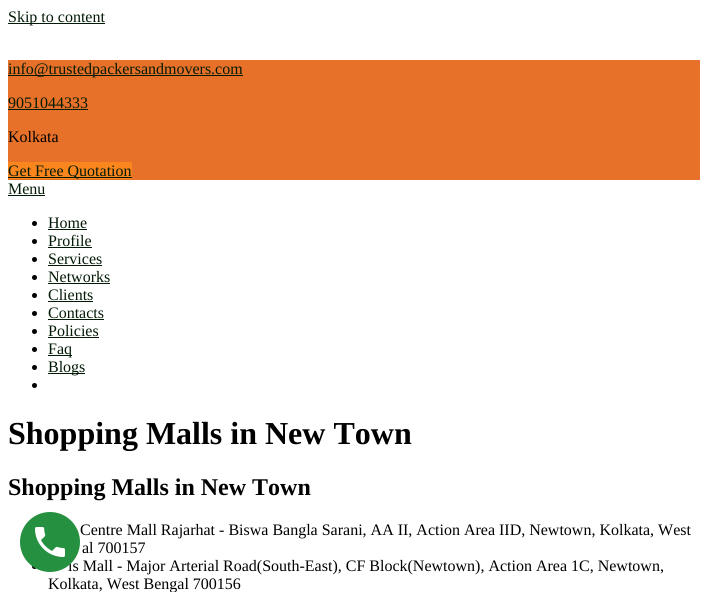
#include <cairo.h>
#include <math.h>
#include <stddef.h>


static void picture(cairo_t *cr, const char *path, double x, double y, double w, double h) {
    cairo_surface_t *image = cairo_image_surface_create_from_png(path);
    cairo_save(cr);
    cairo_set_source_surface(cr, image, x, y);
    cairo_rectangle(cr, x, y, w, h);
    cairo_fill(cr);
    cairo_restore(cr);
    cairo_surface_destroy(image);
}

int main(void) {
    cairo_surface_t *surface = cairo_image_surface_create(CAIRO_FORMAT_RGB24, 708, 592);
    cairo_t *cr = cairo_create(surface);
    cairo_font_options_t *options = cairo_font_options_create();
    cairo_font_options_set_hint_metrics(options, CAIRO_HINT_METRICS_OFF);
    cairo_font_options_set_hint_style(options, CAIRO_HINT_STYLE_NONE);
    cairo_set_font_options(cr, options);
    cairo_set_miter_limit(cr, 4);
    cairo_set_source_rgb(cr, 1, 1, 1);
    cairo_paint(cr);
    cairo_set_source_rgb(cr, 0.012, 0.102, 0.024);
    cairo_rectangle(cr, 8, 23, 97, 1);
    cairo_fill(cr);
    cairo_select_font_face(cr, "Liberation Serif", CAIRO_FONT_SLANT_NORMAL, CAIRO_FONT_WEIGHT_NORMAL);
    cairo_set_font_size(cr, 16);
    cairo_move_to(cr, 8, 22);
    cairo_show_text(cr, "Skip to content");
    cairo_set_source_rgb(cr, 0.906, 0.443, 0.161);
    cairo_rectangle(cr, 8, 60, 692, 120);
    cairo_fill(cr);
    cairo_set_source_rgb(cr, 0.012, 0.102, 0.024);
    cairo_rectangle(cr, 8, 75, 235, 1);
    cairo_fill(cr);
    cairo_move_to(cr, 8, 74);
    cairo_show_text(cr, "info@trustedpackersandmovers.com");
    cairo_move_to(cr, 8, 108);
    cairo_show_text(cr, "9051044333");
    cairo_rectangle(cr, 8, 109, 80, 1);
    cairo_fill(cr);
    cairo_set_source_rgb(cr, 0, 0, 0);
    cairo_move_to(cr, 8, 142);
    cairo_show_text(cr, "Kolkata");
    cairo_set_source_rgb(cr, 0.984, 0.525, 0.118);
    cairo_rectangle(cr, 8, 162, 124, 17);
    cairo_fill(cr);
    cairo_set_source_rgb(cr, 0.012, 0.102, 0.024);
    cairo_rectangle(cr, 8, 177, 124, 1);
    cairo_fill(cr);
    cairo_move_to(cr, 8, 176);
    cairo_show_text(cr, "Get Free Quotation");
    cairo_move_to(cr, 8, 194);
    cairo_show_text(cr, "Menu");
    cairo_rectangle(cr, 8, 195, 37, 1);
    cairo_fill(cr);
    cairo_set_source_rgb(cr, 0, 0, 0);
    cairo_arc(cr, 34.5, 223.5, 2.5, 0, 2 * M_PI);
    cairo_fill(cr);
    cairo_set_source_rgb(cr, 0.012, 0.102, 0.024);
    cairo_move_to(cr, 48, 228);
    cairo_show_text(cr, "Home");
    cairo_rectangle(cr, 48, 229, 39, 1);
    cairo_fill(cr);
    cairo_set_source_rgb(cr, 0, 0, 0);
    cairo_arc(cr, 34.5, 241.5, 2.5, 0, 2 * M_PI);
    cairo_fill(cr);
    cairo_set_source_rgb(cr, 0.012, 0.102, 0.024);
    cairo_move_to(cr, 48, 246);
    cairo_show_text(cr, "Profile");
    cairo_rectangle(cr, 48, 247, 44, 1);
    cairo_fill(cr);
    cairo_set_source_rgb(cr, 0, 0, 0);
    cairo_arc(cr, 34.5, 259.5, 2.5, 0, 2 * M_PI);
    cairo_fill(cr);
    cairo_set_source_rgb(cr, 0.012, 0.102, 0.024);
    cairo_move_to(cr, 48, 264);
    cairo_show_text(cr, "Services");
    cairo_rectangle(cr, 48, 265, 54, 1);
    cairo_fill(cr);
    cairo_set_source_rgb(cr, 0, 0, 0);
    cairo_arc(cr, 34.5, 277.5, 2.5, 0, 2 * M_PI);
    cairo_fill(cr);
    cairo_set_source_rgb(cr, 0.012, 0.102, 0.024);
    cairo_move_to(cr, 48, 282);
    cairo_show_text(cr, "Networks");
    cairo_rectangle(cr, 48, 283, 62, 1);
    cairo_fill(cr);
    cairo_set_source_rgb(cr, 0, 0, 0);
    cairo_arc(cr, 34.5, 295.5, 2.5, 0, 2 * M_PI);
    cairo_fill(cr);
    cairo_set_source_rgb(cr, 0.012, 0.102, 0.024);
    cairo_move_to(cr, 48, 300);
    cairo_show_text(cr, "Clients");
    cairo_rectangle(cr, 48, 301, 45, 1);
    cairo_fill(cr);
    cairo_set_source_rgb(cr, 0, 0, 0);
    cairo_arc(cr, 34.5, 313.5, 2.5, 0, 2 * M_PI);
    cairo_fill(cr);
    cairo_set_source_rgb(cr, 0.012, 0.102, 0.024);
    cairo_move_to(cr, 48, 318);
    cairo_show_text(cr, "Contacts");
    cairo_rectangle(cr, 48, 319, 56, 1);
    cairo_fill(cr);
    cairo_set_source_rgb(cr, 0, 0, 0);
    cairo_arc(cr, 34.5, 331.5, 2.5, 0, 2 * M_PI);
    cairo_fill(cr);
    cairo_set_source_rgb(cr, 0.012, 0.102, 0.024);
    cairo_move_to(cr, 48, 336);
    cairo_show_text(cr, "Policies");
    cairo_rectangle(cr, 48, 337, 51, 1);
    cairo_fill(cr);
    cairo_set_source_rgb(cr, 0, 0, 0);
    cairo_arc(cr, 34.5, 349.5, 2.5, 0, 2 * M_PI);
    cairo_fill(cr);
    cairo_set_source_rgb(cr, 0.012, 0.102, 0.024);
    cairo_rectangle(cr, 48, 355, 24, 1);
    cairo_fill(cr);
    cairo_move_to(cr, 48, 354);
    cairo_show_text(cr, "Faq");
    cairo_set_source_rgb(cr, 0, 0, 0);
    cairo_new_path(cr);
    cairo_arc(cr, 34.5, 367.5, 2.5, 0, 2 * M_PI);
    cairo_fill(cr);
    cairo_set_source_rgb(cr, 0.012, 0.102, 0.024);
    cairo_rectangle(cr, 48, 373, 37, 1);
    cairo_fill(cr);
    cairo_move_to(cr, 48, 372);
    cairo_show_text(cr, "Blogs");
    cairo_set_source_rgb(cr, 0, 0, 0);
    cairo_new_path(cr);
    cairo_arc(cr, 34.5, 385.5, 2.5, 0, 2 * M_PI);
    cairo_fill(cr);
    cairo_select_font_face(cr, "Liberation Serif", CAIRO_FONT_SLANT_NORMAL, CAIRO_FONT_WEIGHT_BOLD);
    cairo_set_font_size(cr, 32);
    cairo_move_to(cr, 8, 444);
    cairo_show_text(cr, "Shopping Malls in New Town");
    cairo_set_font_size(cr, 24);
    cairo_move_to(cr, 8, 495);
    cairo_show_text(cr, "Shopping Malls in New Town");
    cairo_select_font_face(cr, "Liberation Serif", CAIRO_FONT_SLANT_NORMAL, CAIRO_FONT_WEIGHT_NORMAL);
    cairo_set_font_size(cr, 16);
    cairo_move_to(cr, 80, 535);
    cairo_show_text(cr, "Centre Mall Rajarhat - Biswa Bangla Sarani, AA II, Action Area IID, Newtown, Kolkata, West");
    cairo_move_to(cr, 82, 553);
    cairo_show_text(cr, "al 700157");
    cairo_new_path(cr);
    cairo_arc(cr, 34.5, 566.5, 2.5, 0, 2 * M_PI);
    cairo_fill(cr);
    cairo_move_to(cr, 68, 571);
    cairo_show_text(cr, "is Mall - Major Arterial Road(South-East), CF Block(Newtown), Action Area 1C, Newtown,");
    cairo_move_to(cr, 48, 589);
    cairo_show_text(cr, "Kolkata, West Bengal 700156");
    cairo_set_source_rgb(cr, 0.149, 0.565, 0.255);
    cairo_new_path(cr);
    cairo_arc(cr, 50, 542, 30, 0, 2 * M_PI);
    cairo_fill(cr);
    picture(cr, "img1.png", 35, 527, 30, 30);
    cairo_surface_write_to_png(surface, "page.png");
    cairo_font_options_destroy(options);
    cairo_destroy(cr);
    cairo_surface_destroy(surface);
    return 0;
}
